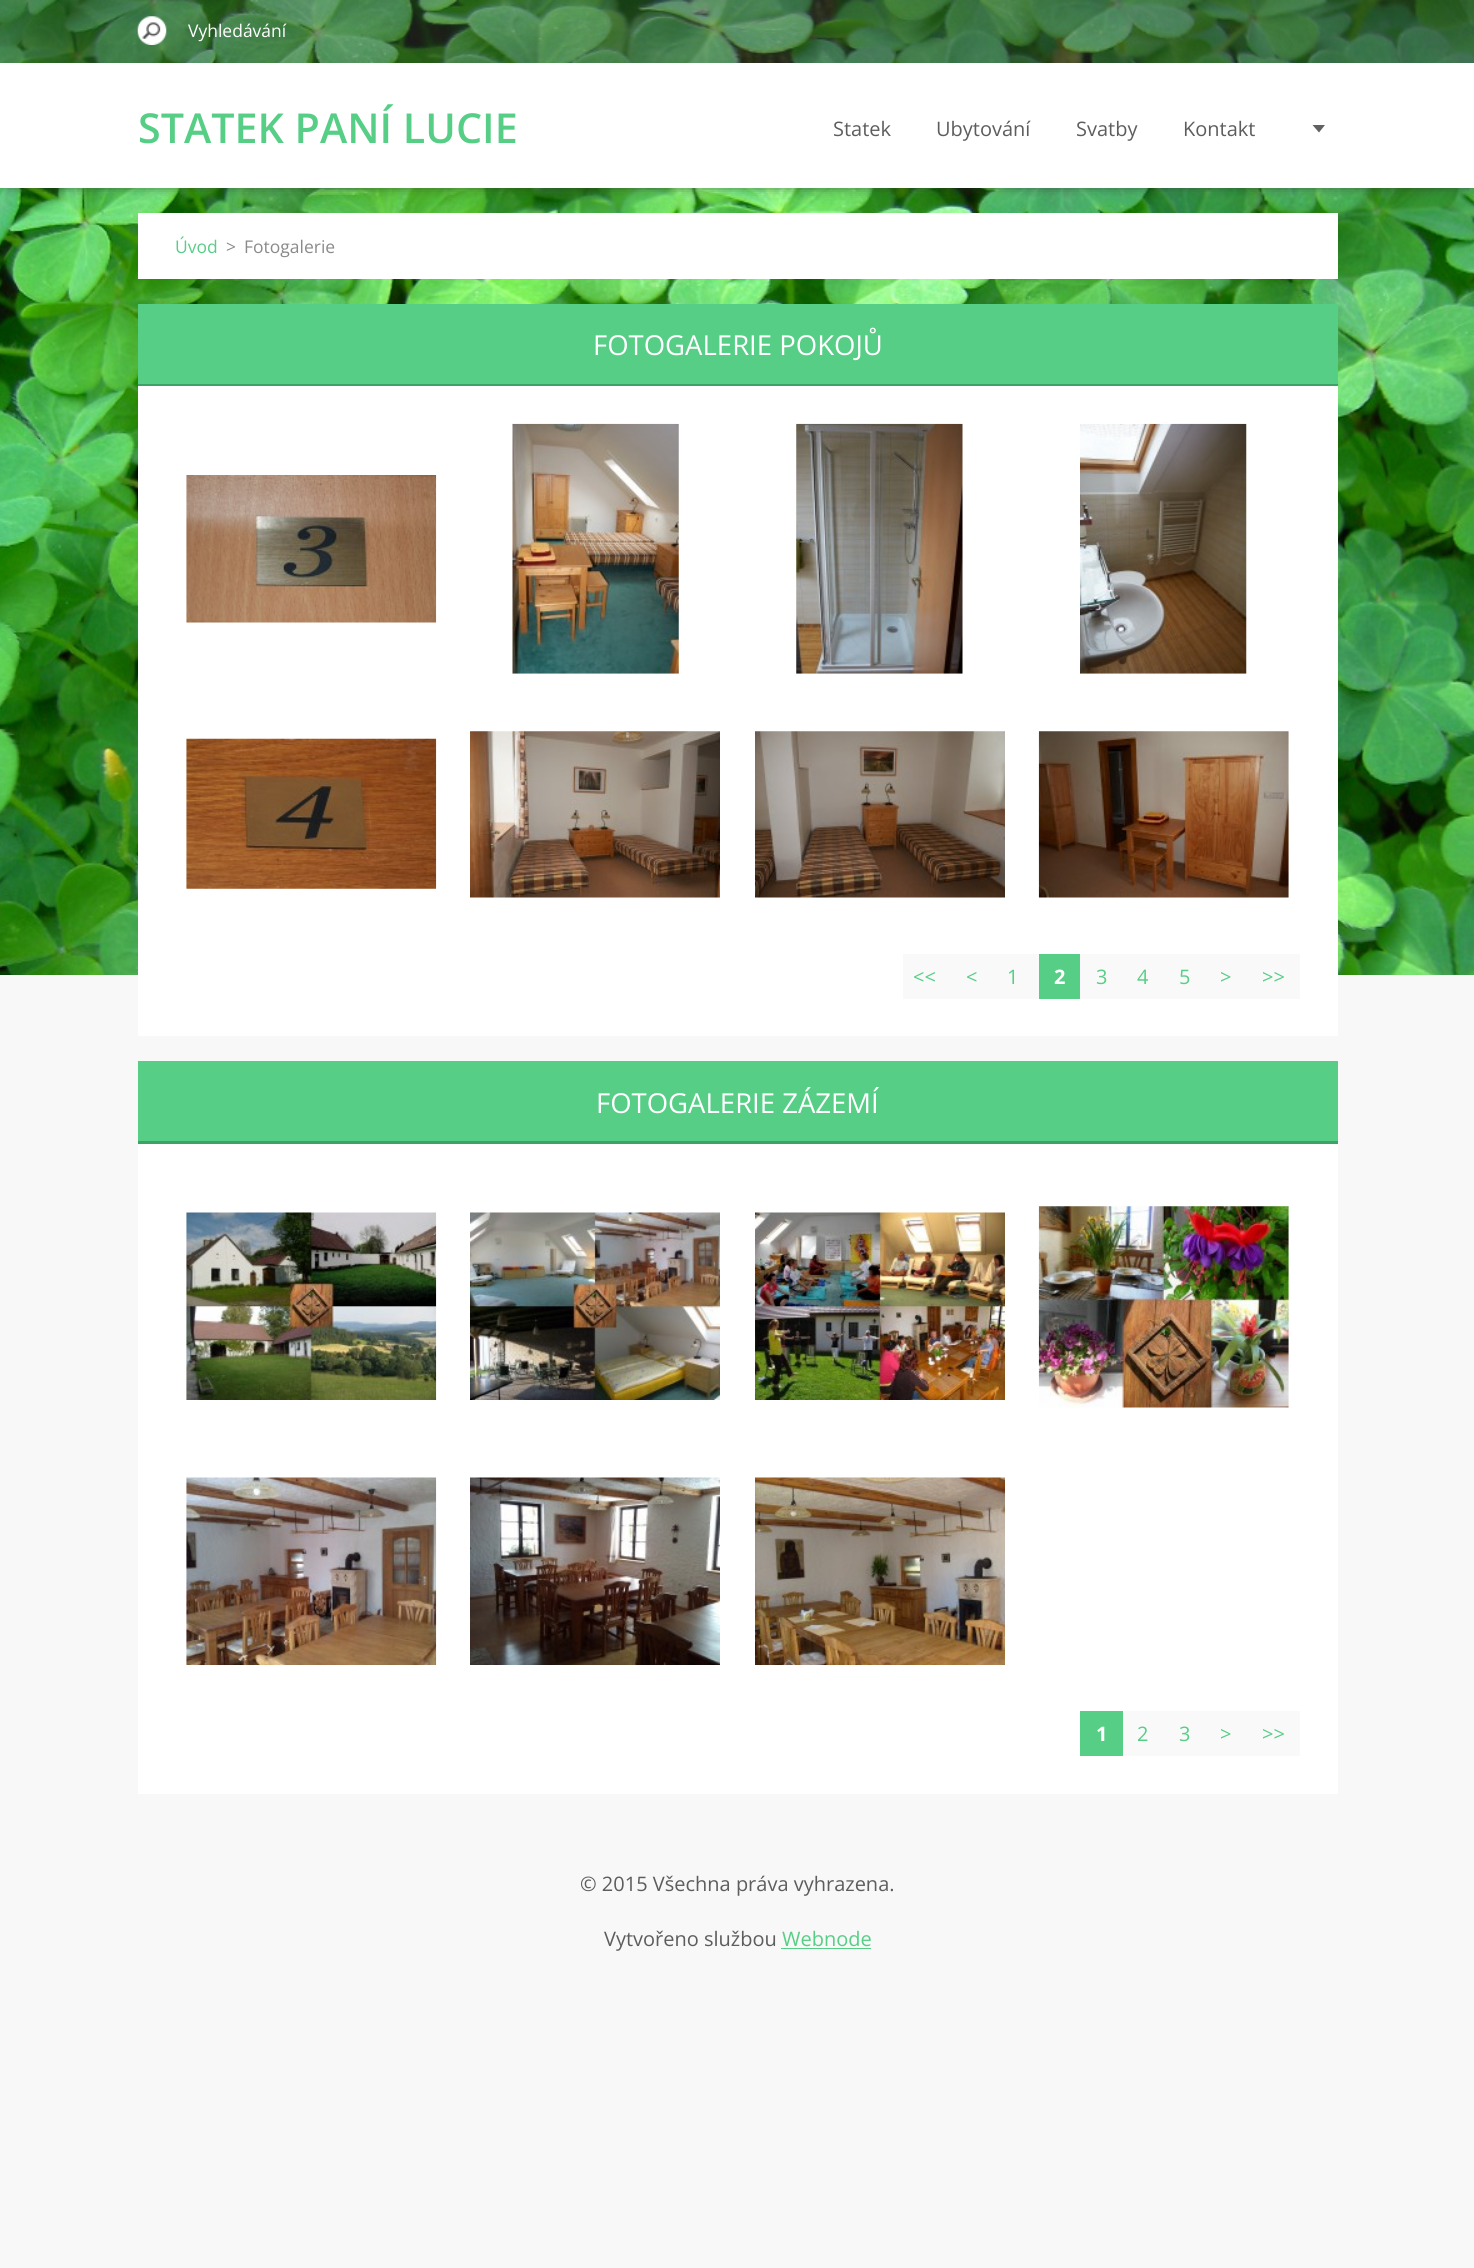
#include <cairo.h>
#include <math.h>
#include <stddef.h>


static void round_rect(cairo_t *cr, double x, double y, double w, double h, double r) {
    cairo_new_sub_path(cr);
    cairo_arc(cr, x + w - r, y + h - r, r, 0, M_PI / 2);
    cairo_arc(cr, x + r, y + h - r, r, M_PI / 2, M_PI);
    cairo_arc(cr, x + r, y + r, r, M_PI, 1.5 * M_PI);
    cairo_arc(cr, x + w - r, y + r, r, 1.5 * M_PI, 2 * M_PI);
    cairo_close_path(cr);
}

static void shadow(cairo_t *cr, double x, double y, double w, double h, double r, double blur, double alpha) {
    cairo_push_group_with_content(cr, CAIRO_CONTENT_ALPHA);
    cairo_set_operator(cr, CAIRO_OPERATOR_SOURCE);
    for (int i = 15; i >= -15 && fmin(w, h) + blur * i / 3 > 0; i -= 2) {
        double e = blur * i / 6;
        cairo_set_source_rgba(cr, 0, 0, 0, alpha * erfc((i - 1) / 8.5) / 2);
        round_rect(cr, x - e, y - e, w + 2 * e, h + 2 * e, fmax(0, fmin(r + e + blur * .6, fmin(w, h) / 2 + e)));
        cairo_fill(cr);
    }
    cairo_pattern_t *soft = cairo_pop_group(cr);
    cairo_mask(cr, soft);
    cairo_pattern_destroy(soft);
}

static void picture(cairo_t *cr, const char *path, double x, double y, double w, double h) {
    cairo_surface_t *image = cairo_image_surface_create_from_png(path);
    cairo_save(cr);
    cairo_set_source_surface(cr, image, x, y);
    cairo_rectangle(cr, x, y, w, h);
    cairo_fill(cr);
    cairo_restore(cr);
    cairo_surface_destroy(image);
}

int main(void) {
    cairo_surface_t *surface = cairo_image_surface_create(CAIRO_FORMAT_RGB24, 1474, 2268);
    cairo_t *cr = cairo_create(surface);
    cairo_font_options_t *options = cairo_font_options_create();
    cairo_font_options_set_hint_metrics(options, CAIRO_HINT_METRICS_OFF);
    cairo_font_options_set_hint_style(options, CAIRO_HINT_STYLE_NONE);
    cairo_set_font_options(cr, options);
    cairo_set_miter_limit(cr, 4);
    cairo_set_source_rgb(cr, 0.969, 0.969, 0.969);
    cairo_paint(cr);
    picture(cr, "img1.png", 0, 0, 1474, 975);
    cairo_set_source_rgba(cr, 0.208, 0.208, 0.208, 0.4);
    cairo_rectangle(cr, 0, 0, 1474, 63);
    cairo_fill(cr);
    picture(cr, "img2.png", 137, 16, 30, 29);
    cairo_select_font_face(cr, "Open Sans", CAIRO_FONT_SLANT_NORMAL, CAIRO_FONT_WEIGHT_NORMAL);
    cairo_set_font_size(cr, 17.5);
    cairo_set_source_rgb(cr, 1, 1, 1);
    cairo_move_to(cr, 188, 37);
    cairo_show_text(cr, "Vyhledávání");
    cairo_set_source_rgb(cr, 0.208, 0.208, 0.208);
    shadow(cr, 8, 75, 1460, 110, 0, 6, 1);
    cairo_set_source_rgb(cr, 1, 1, 1);
    cairo_rectangle(cr, 0, 63, 1474, 125);
    cairo_fill(cr);
    cairo_select_font_face(cr, "Open Sans SemiBold", CAIRO_FONT_SLANT_NORMAL, CAIRO_FONT_WEIGHT_NORMAL);
    cairo_set_font_size(cr, 41.25);
    cairo_set_source_rgb(cr, 0.337, 0.808, 0.525);
    cairo_move_to(cr, 138, 143);
    cairo_show_text(cr, "STATEK PANÍ LUCIE");
    cairo_select_font_face(cr, "Open Sans", CAIRO_FONT_SLANT_NORMAL, CAIRO_FONT_WEIGHT_NORMAL);
    cairo_set_font_size(cr, 20);
    cairo_set_source_rgb(cr, 0.365, 0.365, 0.365);
    cairo_move_to(cr, 833, 136);
    cairo_show_text(cr, "Statek");
    cairo_move_to(cr, 936, 136);
    cairo_show_text(cr, "Ubytování");
    cairo_move_to(cr, 1076, 136);
    cairo_show_text(cr, "Svatby");
    cairo_move_to(cr, 1183, 136);
    cairo_show_text(cr, "Kontakt");
    cairo_set_source_rgb(cr, 0.38, 0.38, 0.38);
    cairo_new_path(cr);
    cairo_move_to(cr, 1312.5, 125);
    cairo_line_to(cr, 1325, 125);
    cairo_line_to(cr, 1319, 132.5);
    cairo_close_path(cr);
    cairo_fill(cr);
    cairo_set_source_rgb(cr, 1, 1, 1);
    cairo_rectangle(cr, 138, 213, 1200, 66);
    cairo_fill(cr);
    cairo_set_font_size(cr, 17.5);
    cairo_set_source_rgb(cr, 0.337, 0.808, 0.525);
    cairo_move_to(cr, 175, 253);
    cairo_show_text(cr, "Úvod");
    cairo_set_source_rgb(cr, 0.541, 0.541, 0.541);
    cairo_move_to(cr, 226, 253);
    cairo_show_text(cr, ">");
    cairo_move_to(cr, 244, 253);
    cairo_show_text(cr, "Fotogalerie");
    cairo_set_source_rgb(cr, 1, 1, 1);
    cairo_rectangle(cr, 138, 386, 1200, 650);
    cairo_fill(cr);
    cairo_set_source_rgb(cr, 0.337, 0.808, 0.525);
    cairo_rectangle(cr, 138, 304, 1200, 80);
    cairo_fill(cr);
    cairo_set_source_rgb(cr, 0.235, 0.635, 0.396);
    cairo_rectangle(cr, 138, 384, 1200, 2);
    cairo_fill(cr);
    cairo_set_font_size(cr, 27.5);
    cairo_set_source_rgb(cr, 1, 1, 1);
    cairo_move_to(cr, 593, 355);
    cairo_show_text(cr, "FOTOGALERIE POKOJŮ");
    picture(cr, "img3.png", 186, 475, 251, 148);
    picture(cr, "img4.png", 512, 423, 167, 251);
    picture(cr, "img5.png", 796, 423, 167, 251);
    picture(cr, "img6.png", 1080, 423, 167, 251);
    picture(cr, "img7.png", 186, 738, 251, 151);
    picture(cr, "img8.png", 470, 731, 250, 167);
    picture(cr, "img9.png", 755, 731, 250, 167);
    picture(cr, "img10.png", 1038, 731, 251, 167);
    cairo_set_source_rgb(cr, 0.976, 0.976, 0.976);
    cairo_rectangle(cr, 903, 954, 397, 45);
    cairo_fill(cr);
    cairo_set_font_size(cr, 20);
    cairo_set_source_rgb(cr, 0.337, 0.808, 0.525);
    cairo_move_to(cr, 913, 984);
    cairo_show_text(cr, "<<");
    cairo_move_to(cr, 966, 984);
    cairo_show_text(cr, "<");
    cairo_move_to(cr, 1007, 984);
    cairo_show_text(cr, "1");
    cairo_rectangle(cr, 1039, 954, 41, 45);
    cairo_fill(cr);
    cairo_select_font_face(cr, "Open Sans", CAIRO_FONT_SLANT_NORMAL, CAIRO_FONT_WEIGHT_BOLD);
    cairo_set_source_rgb(cr, 1, 1, 1);
    cairo_move_to(cr, 1054, 984);
    cairo_show_text(cr, "2");
    cairo_select_font_face(cr, "Open Sans", CAIRO_FONT_SLANT_NORMAL, CAIRO_FONT_WEIGHT_NORMAL);
    cairo_set_source_rgb(cr, 0.337, 0.808, 0.525);
    cairo_move_to(cr, 1096, 984);
    cairo_show_text(cr, "3");
    cairo_move_to(cr, 1137, 984);
    cairo_show_text(cr, "4");
    cairo_move_to(cr, 1179, 984);
    cairo_show_text(cr, "5");
    cairo_move_to(cr, 1220, 984);
    cairo_show_text(cr, ">");
    cairo_move_to(cr, 1262, 984);
    cairo_show_text(cr, ">>");
    cairo_set_source_rgb(cr, 1, 1, 1);
    cairo_rectangle(cr, 138, 1144, 1200, 650);
    cairo_fill(cr);
    cairo_set_source_rgb(cr, 0.337, 0.808, 0.525);
    cairo_rectangle(cr, 138, 1061, 1200, 80);
    cairo_fill(cr);
    cairo_set_source_rgb(cr, 0.235, 0.635, 0.396);
    cairo_rectangle(cr, 138, 1141, 1200, 3);
    cairo_fill(cr);
    cairo_set_font_size(cr, 27.5);
    cairo_set_source_rgb(cr, 1, 1, 1);
    cairo_move_to(cr, 596, 1113);
    cairo_show_text(cr, "FOTOGALERIE ZÁZEMÍ");
    picture(cr, "img11.png", 186, 1212, 251, 188);
    picture(cr, "img12.png", 470, 1212, 250, 188);
    picture(cr, "img13.png", 755, 1212, 250, 188);
    picture(cr, "img14.png", 1038, 1206, 251, 202);
    picture(cr, "img15.png", 186, 1477, 251, 188);
    picture(cr, "img16.png", 470, 1477, 250, 188);
    picture(cr, "img17.png", 755, 1477, 250, 188);
    cairo_set_source_rgb(cr, 0.976, 0.976, 0.976);
    cairo_rectangle(cr, 1123, 1711, 177, 45);
    cairo_fill(cr);
    cairo_set_source_rgb(cr, 0.337, 0.808, 0.525);
    cairo_rectangle(cr, 1080, 1711, 43, 45);
    cairo_fill(cr);
    cairo_select_font_face(cr, "Open Sans", CAIRO_FONT_SLANT_NORMAL, CAIRO_FONT_WEIGHT_BOLD);
    cairo_set_font_size(cr, 20);
    cairo_set_source_rgb(cr, 1, 1, 1);
    cairo_move_to(cr, 1096, 1741);
    cairo_show_text(cr, "1");
    cairo_select_font_face(cr, "Open Sans", CAIRO_FONT_SLANT_NORMAL, CAIRO_FONT_WEIGHT_NORMAL);
    cairo_set_source_rgb(cr, 0.337, 0.808, 0.525);
    cairo_move_to(cr, 1137, 1741);
    cairo_show_text(cr, "2");
    cairo_move_to(cr, 1179, 1741);
    cairo_show_text(cr, "3");
    cairo_move_to(cr, 1220, 1741);
    cairo_show_text(cr, ">");
    cairo_move_to(cr, 1262, 1741);
    cairo_show_text(cr, ">>");
    cairo_set_source_rgb(cr, 0.365, 0.365, 0.365);
    cairo_move_to(cr, 580, 1891);
    cairo_show_text(cr, "© 2015 Všechna práva vyhrazena.");
    cairo_move_to(cr, 604, 1946);
    cairo_show_text(cr, "Vytvořeno službou");
    cairo_set_source_rgb(cr, 0.337, 0.808, 0.525);
    cairo_move_to(cr, 782, 1946);
    cairo_show_text(cr, "Webnode");
    cairo_rectangle(cr, 781, 1948, 90, 1);
    cairo_fill(cr);
    cairo_surface_write_to_png(surface, "page.png");
    cairo_font_options_destroy(options);
    cairo_destroy(cr);
    cairo_surface_destroy(surface);
    return 0;
}
